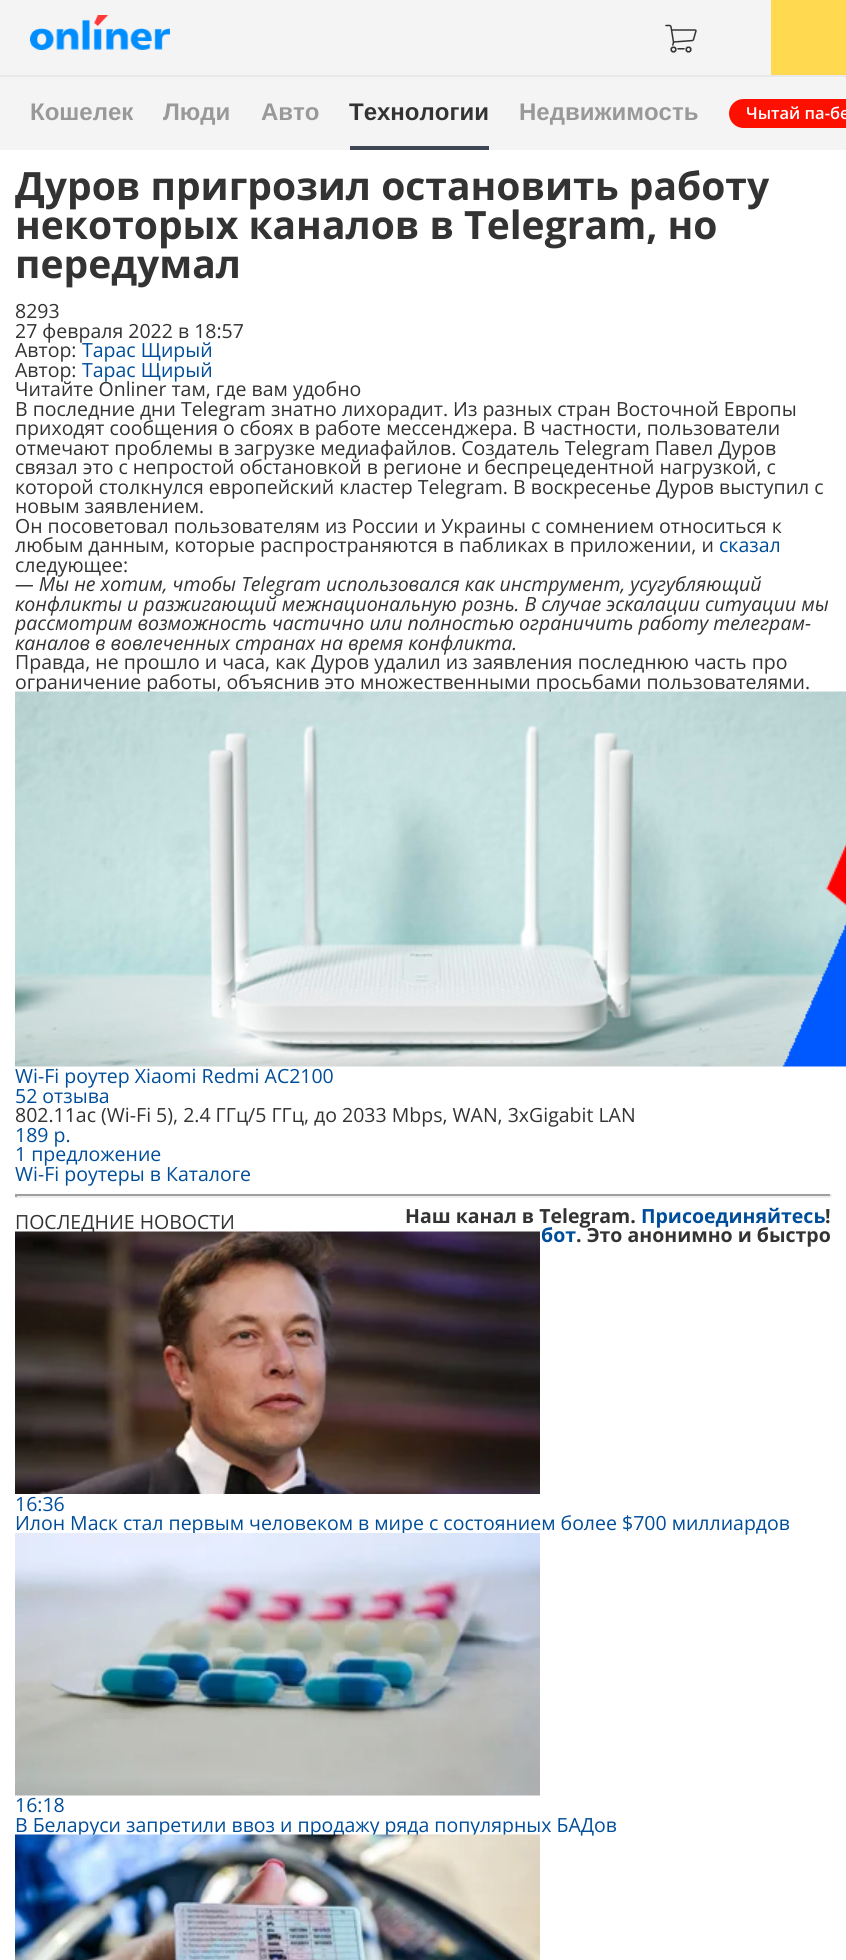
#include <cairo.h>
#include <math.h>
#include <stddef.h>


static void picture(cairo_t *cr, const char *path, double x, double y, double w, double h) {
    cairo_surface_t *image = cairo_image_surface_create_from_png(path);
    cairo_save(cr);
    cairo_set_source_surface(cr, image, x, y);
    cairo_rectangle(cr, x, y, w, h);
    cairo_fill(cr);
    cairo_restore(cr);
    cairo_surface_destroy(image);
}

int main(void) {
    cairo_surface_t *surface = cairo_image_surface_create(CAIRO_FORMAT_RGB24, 846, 1960);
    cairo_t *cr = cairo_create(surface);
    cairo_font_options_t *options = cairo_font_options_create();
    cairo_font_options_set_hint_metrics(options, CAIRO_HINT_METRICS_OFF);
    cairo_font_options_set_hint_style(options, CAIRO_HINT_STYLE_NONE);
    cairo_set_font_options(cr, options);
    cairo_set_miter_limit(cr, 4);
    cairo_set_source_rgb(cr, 1, 1, 1);
    cairo_paint(cr);
    cairo_set_source_rgb(cr, 0.957, 0.957, 0.957);
    cairo_rectangle(cr, 0, 0, 771, 75);
    cairo_fill(cr);
    cairo_set_source_rgb(cr, 0.91, 0.91, 0.91);
    cairo_rectangle(cr, 0, 75, 846, 2);
    cairo_fill(cr);
    picture(cr, "img1.png", 30, 15, 140, 35);
    picture(cr, "img2.png", 665, 24, 32, 29);
    cairo_set_source_rgb(cr, 1, 0.855, 0.314);
    cairo_rectangle(cr, 771, 0, 75, 75);
    cairo_fill(cr);
    cairo_set_source_rgb(cr, 0.957, 0.957, 0.957);
    cairo_rectangle(cr, 0, 77, 846, 73);
    cairo_fill(cr);
    cairo_select_font_face(cr, "Liberation Sans", CAIRO_FONT_SLANT_NORMAL, CAIRO_FONT_WEIGHT_BOLD);
    cairo_set_font_size(cr, 24);
    cairo_set_source_rgb(cr, 0.6, 0.6, 0.6);
    cairo_move_to(cr, 30, 120);
    cairo_show_text(cr, "Кошелек");
    cairo_move_to(cr, 163, 120);
    cairo_show_text(cr, "Люди");
    cairo_move_to(cr, 261, 120);
    cairo_show_text(cr, "Авто");
    cairo_set_source_rgb(cr, 0.2, 0.2, 0.2);
    cairo_move_to(cr, 349, 120);
    cairo_show_text(cr, "Технологии");
    cairo_set_source_rgb(cr, 0.243, 0.278, 0.325);
    cairo_rectangle(cr, 350, 146, 139, 4);
    cairo_fill(cr);
    cairo_set_source_rgb(cr, 0.6, 0.6, 0.6);
    cairo_move_to(cr, 519, 120);
    cairo_show_text(cr, "Недвижимость");
    cairo_set_source_rgb(cr, 0.992, 0.063, 0);
    cairo_new_path(cr);
    cairo_move_to(cr, 743.5, 99);
    cairo_line_to(cr, 846, 99);
    cairo_line_to(cr, 846, 128);
    cairo_line_to(cr, 743.5, 128);
    cairo_curve_to(cr, 735.5, 128, 729, 121.5, 729, 113.5);
    cairo_curve_to(cr, 729, 105.5, 735.5, 99, 743.5, 99);
    cairo_close_path(cr);
    cairo_fill(cr);
    cairo_select_font_face(cr, "Open Sans SemiBold", CAIRO_FONT_SLANT_NORMAL, CAIRO_FONT_WEIGHT_NORMAL);
    cairo_set_font_size(cr, 16.5);
    cairo_set_source_rgb(cr, 1, 1, 1);
    cairo_move_to(cr, 746, 119);
    cairo_show_text(cr, "Чытай па-бе");
    cairo_select_font_face(cr, "Open Sans", CAIRO_FONT_SLANT_NORMAL, CAIRO_FONT_WEIGHT_BOLD);
    cairo_set_font_size(cr, 39);
    cairo_set_source_rgb(cr, 0.2, 0.2, 0.2);
    cairo_move_to(cr, 15, 200);
    cairo_show_text(cr, "Дуров пригрозил остановить работу");
    cairo_move_to(cr, 15, 239);
    cairo_show_text(cr, "некоторых каналов в Telegram, но");
    cairo_move_to(cr, 15, 278);
    cairo_show_text(cr, "передумал");
    cairo_select_font_face(cr, "Open Sans", CAIRO_FONT_SLANT_NORMAL, CAIRO_FONT_WEIGHT_NORMAL);
    cairo_set_font_size(cr, 19.5);
    cairo_move_to(cr, 15, 318);
    cairo_show_text(cr, "8293");
    cairo_move_to(cr, 15, 338);
    cairo_show_text(cr, "27 февраля 2022 в 18:57");
    cairo_move_to(cr, 15, 357);
    cairo_show_text(cr, "Автор:");
    cairo_set_source_rgb(cr, 0, 0.302, 0.6);
    cairo_move_to(cr, 82, 357);
    cairo_show_text(cr, "Тарас Щирый");
    cairo_set_source_rgb(cr, 0.2, 0.2, 0.2);
    cairo_move_to(cr, 15, 377);
    cairo_show_text(cr, "Автор:");
    cairo_set_source_rgb(cr, 0, 0.302, 0.6);
    cairo_move_to(cr, 82, 377);
    cairo_show_text(cr, "Тарас Щирый");
    cairo_set_source_rgb(cr, 0.2, 0.2, 0.2);
    cairo_move_to(cr, 15, 396);
    cairo_show_text(cr, "Читайте Onliner там, где вам удобно");
    cairo_move_to(cr, 15, 416);
    cairo_show_text(cr, "В последние дни Telegram знатно лихорадит. Из разных стран Восточной Европы");
    cairo_move_to(cr, 15, 435);
    cairo_show_text(cr, "приходят сообщения о сбоях в работе мессенджера. В частности, пользователи");
    cairo_move_to(cr, 15, 455);
    cairo_show_text(cr, "отмечают проблемы в загрузке медиафайлов. Создатель Telegram Павел Дуров");
    cairo_move_to(cr, 15, 474);
    cairo_show_text(cr, "связал это с непростой обстановкой в регионе и беспрецедентной нагрузкой, с");
    cairo_move_to(cr, 15, 494);
    cairo_show_text(cr, "которой столкнулся европейский кластер Telegram. В воскресенье Дуров выступил с");
    cairo_move_to(cr, 15, 513);
    cairo_show_text(cr, "новым заявлением.");
    cairo_move_to(cr, 15, 533);
    cairo_show_text(cr, "Он посоветовал пользователям из России и Украины с сомнением относиться к");
    cairo_move_to(cr, 15, 552);
    cairo_show_text(cr, "любым данным, которые распространяются в пабликах в приложении, и");
    cairo_set_source_rgb(cr, 0, 0.302, 0.6);
    cairo_move_to(cr, 719, 552);
    cairo_show_text(cr, "сказал");
    cairo_set_source_rgb(cr, 0.2, 0.2, 0.2);
    cairo_move_to(cr, 15, 572);
    cairo_show_text(cr, "следующее:");
    cairo_select_font_face(cr, "Open Sans", CAIRO_FONT_SLANT_ITALIC, CAIRO_FONT_WEIGHT_NORMAL);
    cairo_move_to(cr, 15, 591);
    cairo_show_text(cr, "— Мы не хотим, чтобы Telegram использовался как инструмент, усугубляющий");
    cairo_move_to(cr, 15, 611);
    cairo_show_text(cr, "конфликты и разжигающий межнациональную рознь. В случае эскалации ситуации мы");
    cairo_move_to(cr, 15, 630);
    cairo_show_text(cr, "рассмотрим возможность частично или полностью ограничить работу телеграм-");
    cairo_move_to(cr, 15, 650);
    cairo_show_text(cr, "каналов в вовлеченных странах на время конфликта.");
    cairo_select_font_face(cr, "Open Sans", CAIRO_FONT_SLANT_NORMAL, CAIRO_FONT_WEIGHT_NORMAL);
    cairo_move_to(cr, 15, 669);
    cairo_show_text(cr, "Правда, не прошло и часа, как Дуров удалил из заявления последнюю часть про");
    cairo_move_to(cr, 15, 689);
    cairo_show_text(cr, "ограничение работы, объяснив это множественными просьбами пользователями.");
    picture(cr, "img3.png", 15, 691, 831, 376);
    cairo_set_source_rgb(cr, 0, 0.302, 0.6);
    cairo_move_to(cr, 15, 1083);
    cairo_show_text(cr, "Wi-Fi роутер Xiaomi Redmi AC2100");
    cairo_move_to(cr, 15, 1103);
    cairo_show_text(cr, "52 отзыва");
    cairo_set_source_rgb(cr, 0.2, 0.2, 0.2);
    cairo_move_to(cr, 15, 1122);
    cairo_show_text(cr, "802.11ac (Wi-Fi 5), 2.4 ГГц/5 ГГц, до 2033 Mbps, WAN, 3xGigabit LAN");
    cairo_set_source_rgb(cr, 0, 0.302, 0.6);
    cairo_move_to(cr, 15, 1142);
    cairo_show_text(cr, "189 р.");
    cairo_move_to(cr, 15, 1161);
    cairo_show_text(cr, "1 предложение");
    cairo_move_to(cr, 15, 1181);
    cairo_show_text(cr, "Wi-Fi роутеры в Каталоге");
    cairo_set_source_rgb(cr, 0.624, 0.624, 0.624);
    cairo_rectangle(cr, 15, 1194, 816, 2);
    cairo_fill(cr);
    cairo_set_source_rgb(cr, 0.933, 0.933, 0.933);
    cairo_rectangle(cr, 830, 1194, 2, 3);
    cairo_fill(cr);
    cairo_rectangle(cr, 15, 1196, 816, 2);
    cairo_fill(cr);
    cairo_set_source_rgb(cr, 0.624, 0.624, 0.624);
    cairo_rectangle(cr, 15, 1194, 2, 3);
    cairo_fill(cr);
    cairo_select_font_face(cr, "Open Sans", CAIRO_FONT_SLANT_NORMAL, CAIRO_FONT_WEIGHT_BOLD);
    cairo_set_source_rgb(cr, 0.2, 0.2, 0.2);
    cairo_move_to(cr, 405, 1223);
    cairo_show_text(cr, "Наш канал в Telegram.");
    cairo_set_source_rgb(cr, 0, 0.302, 0.6);
    cairo_move_to(cr, 641, 1223);
    cairo_show_text(cr, "Присоединяйтесь");
    cairo_set_source_rgb(cr, 0.2, 0.2, 0.2);
    cairo_move_to(cr, 825, 1223);
    cairo_show_text(cr, "!");
    cairo_set_source_rgb(cr, 0, 0.302, 0.6);
    cairo_move_to(cr, 541, 1242);
    cairo_show_text(cr, "бот");
    cairo_set_source_rgb(cr, 0.2, 0.2, 0.2);
    cairo_move_to(cr, 576, 1242);
    cairo_show_text(cr, ". Это анонимно и быстро");
    cairo_select_font_face(cr, "Open Sans", CAIRO_FONT_SLANT_NORMAL, CAIRO_FONT_WEIGHT_NORMAL);
    cairo_move_to(cr, 15, 1229);
    cairo_show_text(cr, "ПОСЛЕДНИЕ НОВОСТИ");
    picture(cr, "img4.png", 15, 1231, 525, 263);
    cairo_set_source_rgb(cr, 0, 0.302, 0.6);
    cairo_move_to(cr, 15, 1511);
    cairo_show_text(cr, "16:36");
    cairo_move_to(cr, 15, 1530);
    cairo_show_text(cr, "Илон Маск стал первым человеком в мире с состоянием более $700 миллиардов");
    picture(cr, "img5.png", 15, 1533, 525, 263);
    cairo_move_to(cr, 15, 1812);
    cairo_show_text(cr, "16:18");
    cairo_move_to(cr, 15, 1832);
    cairo_show_text(cr, "В Беларуси запретили ввоз и продажу ряда популярных БАДов");
    picture(cr, "img6.png", 15, 1834, 525, 126);
    cairo_surface_write_to_png(surface, "page.png");
    cairo_font_options_destroy(options);
    cairo_destroy(cr);
    cairo_surface_destroy(surface);
    return 0;
}
